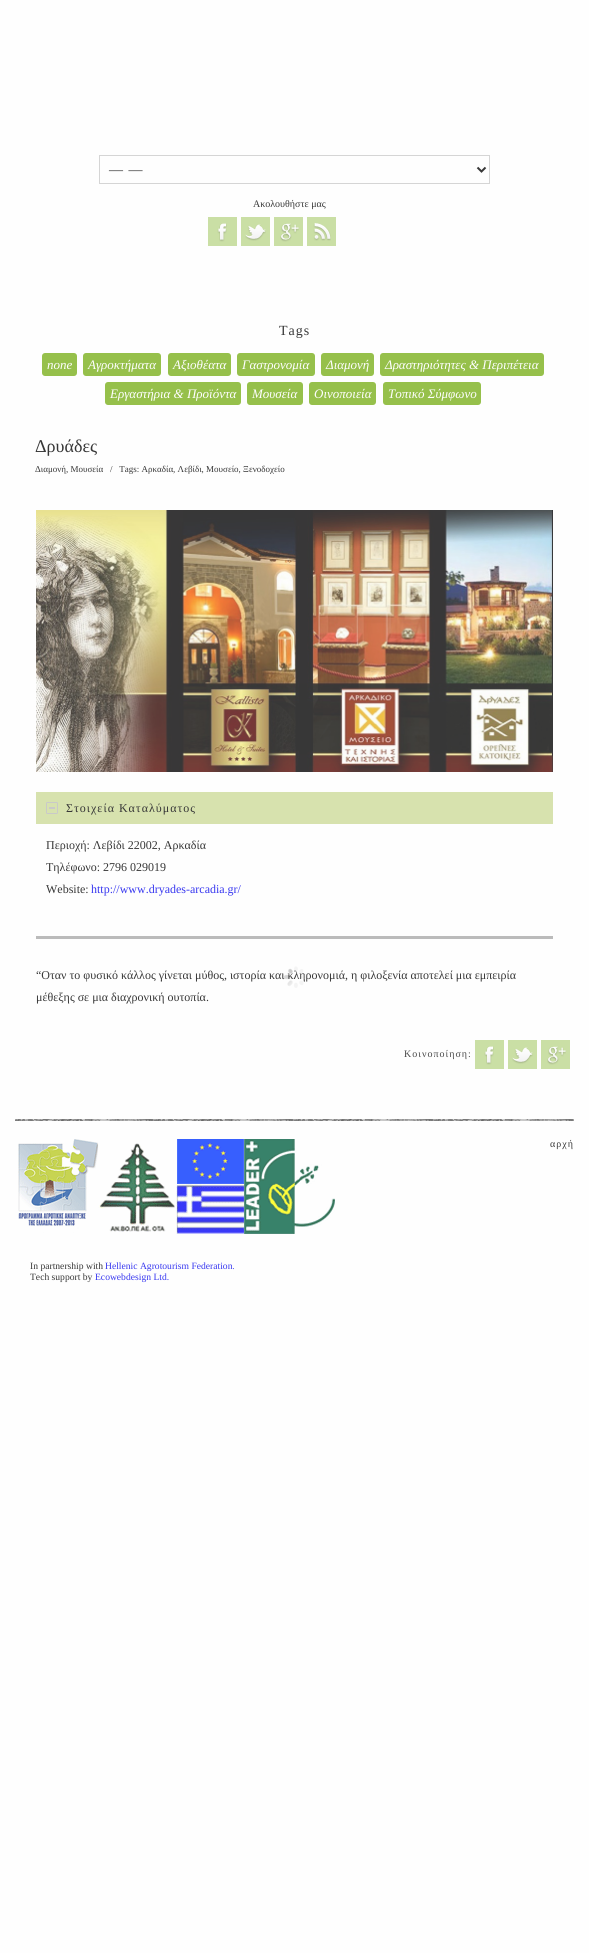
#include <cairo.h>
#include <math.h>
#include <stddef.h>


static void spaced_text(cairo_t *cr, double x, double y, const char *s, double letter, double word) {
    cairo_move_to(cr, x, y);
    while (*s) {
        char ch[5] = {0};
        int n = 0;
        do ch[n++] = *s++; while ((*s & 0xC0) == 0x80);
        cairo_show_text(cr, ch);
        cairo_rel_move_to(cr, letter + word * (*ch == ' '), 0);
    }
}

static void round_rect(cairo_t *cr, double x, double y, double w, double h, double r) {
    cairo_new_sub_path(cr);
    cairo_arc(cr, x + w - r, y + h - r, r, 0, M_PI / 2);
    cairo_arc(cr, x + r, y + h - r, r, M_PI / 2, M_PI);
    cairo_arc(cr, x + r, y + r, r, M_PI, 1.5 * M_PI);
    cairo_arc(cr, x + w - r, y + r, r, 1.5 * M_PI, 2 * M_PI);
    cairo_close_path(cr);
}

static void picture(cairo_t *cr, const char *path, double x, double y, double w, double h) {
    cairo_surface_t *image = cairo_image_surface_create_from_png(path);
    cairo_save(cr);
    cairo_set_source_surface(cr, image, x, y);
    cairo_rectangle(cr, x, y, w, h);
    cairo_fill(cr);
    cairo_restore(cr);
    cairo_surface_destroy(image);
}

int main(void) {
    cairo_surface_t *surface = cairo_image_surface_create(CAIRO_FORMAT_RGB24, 589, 1953);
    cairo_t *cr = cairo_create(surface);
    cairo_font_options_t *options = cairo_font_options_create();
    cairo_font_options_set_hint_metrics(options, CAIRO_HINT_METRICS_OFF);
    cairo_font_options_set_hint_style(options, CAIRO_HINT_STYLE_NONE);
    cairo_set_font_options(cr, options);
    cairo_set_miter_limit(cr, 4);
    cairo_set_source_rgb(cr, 0.996, 0.996, 0.996);
    cairo_paint(cr);
    cairo_rectangle(cr, 99.5, 155.5, 390, 28);
    cairo_set_source_rgb(cr, 0.835, 0.835, 0.835);
    cairo_set_line_width(cr, 1);
    cairo_stroke(cr);
    cairo_new_path(cr);
    cairo_move_to(cr, 477.5, 167.5);
    cairo_line_to(cr, 481.5, 171.5);
    cairo_line_to(cr, 485.5, 167.5);
    cairo_set_source_rgb(cr, 0.216, 0.216, 0.216);
    cairo_set_line_width(cr, 2);
    cairo_stroke(cr);
    cairo_select_font_face(cr, "Liberation Serif", CAIRO_FONT_SLANT_NORMAL, CAIRO_FONT_WEIGHT_NORMAL);
    cairo_set_font_size(cr, 14);
    spaced_text(cr, 109, 174, "— —", 1, 0);
    cairo_set_font_size(cr, 10);
    cairo_move_to(cr, 253, 207);
    cairo_show_text(cr, "Ακολουθήστε μας");
    cairo_set_source_rgb(cr, 0.792, 0.875, 0.647);
    cairo_rectangle(cr, 208, 217, 29, 29);
    cairo_fill(cr);
    picture(cr, "img1.png", 217, 223, 10, 19);
    cairo_rectangle(cr, 241, 217, 29, 29);
    cairo_fill(cr);
    picture(cr, "img2.png", 245, 224, 21, 17);
    cairo_rectangle(cr, 274, 217, 29, 29);
    cairo_fill(cr);
    picture(cr, "img3.png", 280, 223, 19, 19);
    cairo_rectangle(cr, 307, 217, 29, 29);
    cairo_fill(cr);
    picture(cr, "img4.png", 313, 223, 18, 18);
    cairo_set_font_size(cr, 14);
    cairo_set_source_rgb(cr, 0.216, 0.216, 0.216);
    spaced_text(cr, 279, 335, "Tags", 1, 0);
    cairo_set_source_rgb(cr, 0.588, 0.753, 0.294);
    round_rect(cr, 42, 353, 35, 23, 3);
    cairo_fill(cr);
    cairo_select_font_face(cr, "Liberation Serif", CAIRO_FONT_SLANT_ITALIC, CAIRO_FONT_WEIGHT_NORMAL);
    cairo_set_font_size(cr, 13);
    cairo_set_source_rgb(cr, 0.996, 0.996, 0.996);
    cairo_move_to(cr, 47, 369);
    cairo_show_text(cr, "none");
    cairo_set_source_rgb(cr, 0.588, 0.753, 0.294);
    round_rect(cr, 83, 353, 78, 23, 3);
    cairo_fill(cr);
    cairo_set_source_rgb(cr, 0.996, 0.996, 0.996);
    cairo_move_to(cr, 88, 369);
    cairo_show_text(cr, "Αγροκτήματα");
    cairo_set_source_rgb(cr, 0.588, 0.753, 0.294);
    round_rect(cr, 168, 353, 63, 23, 3);
    cairo_fill(cr);
    cairo_set_source_rgb(cr, 0.996, 0.996, 0.996);
    cairo_move_to(cr, 173, 369);
    cairo_show_text(cr, "Αξιοθέατα");
    cairo_set_source_rgb(cr, 0.588, 0.753, 0.294);
    round_rect(cr, 237, 353, 78, 23, 3);
    cairo_fill(cr);
    cairo_set_source_rgb(cr, 0.996, 0.996, 0.996);
    cairo_move_to(cr, 242, 369);
    cairo_show_text(cr, "Γαστρονομία");
    cairo_set_source_rgb(cr, 0.588, 0.753, 0.294);
    round_rect(cr, 321, 353, 53, 23, 3);
    cairo_fill(cr);
    cairo_set_source_rgb(cr, 0.996, 0.996, 0.996);
    cairo_move_to(cr, 326, 369);
    cairo_show_text(cr, "Διαμονή");
    cairo_set_source_rgb(cr, 0.588, 0.753, 0.294);
    round_rect(cr, 380, 353, 164, 23, 3);
    cairo_fill(cr);
    cairo_set_source_rgb(cr, 0.996, 0.996, 0.996);
    cairo_move_to(cr, 385, 369);
    cairo_show_text(cr, "Δραστηριότητες & Περιπέτεια");
    cairo_set_source_rgb(cr, 0.588, 0.753, 0.294);
    round_rect(cr, 105, 382, 136, 23, 3);
    cairo_fill(cr);
    cairo_set_source_rgb(cr, 0.996, 0.996, 0.996);
    cairo_move_to(cr, 110, 398);
    cairo_show_text(cr, "Εργαστήρια & Προϊόντα");
    cairo_set_source_rgb(cr, 0.588, 0.753, 0.294);
    round_rect(cr, 247, 382, 56, 23, 3);
    cairo_fill(cr);
    cairo_set_source_rgb(cr, 0.996, 0.996, 0.996);
    cairo_move_to(cr, 252, 398);
    cairo_show_text(cr, "Μουσεία");
    cairo_set_source_rgb(cr, 0.588, 0.753, 0.294);
    round_rect(cr, 309, 382, 67, 23, 3);
    cairo_fill(cr);
    cairo_set_source_rgb(cr, 0.996, 0.996, 0.996);
    cairo_move_to(cr, 314, 398);
    cairo_show_text(cr, "Οινοποιεία");
    cairo_set_source_rgb(cr, 0.588, 0.753, 0.294);
    round_rect(cr, 383, 382, 98, 23, 3);
    cairo_fill(cr);
    cairo_set_source_rgb(cr, 0.996, 0.996, 0.996);
    cairo_move_to(cr, 388, 398);
    cairo_show_text(cr, "Τοπικό Σύμφωνο");
    cairo_select_font_face(cr, "Liberation Serif", CAIRO_FONT_SLANT_NORMAL, CAIRO_FONT_WEIGHT_NORMAL);
    cairo_set_font_size(cr, 18);
    cairo_set_source_rgb(cr, 0.216, 0.216, 0.216);
    cairo_move_to(cr, 35, 452);
    cairo_show_text(cr, "Δρυάδες");
    cairo_set_font_size(cr, 9);
    cairo_move_to(cr, 35, 472);
    cairo_show_text(cr, "Διαμονή, Μουσεία");
    cairo_move_to(cr, 110, 472);
    cairo_show_text(cr, "/   Tags: Αρκαδία, Λεβίδι, Μουσείο, Ξενοδοχείο");
    picture(cr, "img5.png", 36, 510, 517, 262);
    cairo_set_source_rgb(cr, 0.843, 0.886, 0.682);
    cairo_rectangle(cr, 36, 792, 517, 32);
    cairo_fill(cr);
    picture(cr, "img6.png", 46, 802, 12, 12);
    cairo_set_font_size(cr, 12);
    cairo_set_source_rgb(cr, 0.216, 0.216, 0.216);
    spaced_text(cr, 66, 812, "Στοιχεία Καταλύματος", 1, 0);
    cairo_move_to(cr, 46, 849);
    cairo_show_text(cr, "Περιοχή: Λεβίδι 22002, Αρκαδία");
    cairo_move_to(cr, 46, 871);
    cairo_show_text(cr, "Τηλέφωνo: 2796 029019");
    cairo_move_to(cr, 46, 893);
    cairo_show_text(cr, "Website:");
    cairo_set_source_rgb(cr, 0.216, 0.216, 0.941);
    cairo_move_to(cr, 91, 893);
    cairo_show_text(cr, "http://www.dryades-arcadia.gr/");
    cairo_set_source_rgb(cr, 0.733, 0.733, 0.733);
    cairo_rectangle(cr, 36, 936, 517, 3);
    cairo_fill(cr);
    cairo_set_source_rgb(cr, 0.216, 0.216, 0.216);
    cairo_move_to(cr, 36, 979);
    cairo_show_text(cr, "“Οταν το φυσικό κάλλος γίνεται μύθος, ιστορία και κληρονομιά, η φιλοξενία αποτελεί μια εμπειρία");
    cairo_move_to(cr, 36, 1001);
    cairo_show_text(cr, "μέθεξης σε μια διαχρονική ουτοπία.");
    cairo_set_font_size(cr, 10);
    cairo_set_source_rgb(cr, 0.282, 0.282, 0.282);
    spaced_text(cr, 404, 1057, "Κοινοποίηση:", 1, 0);
    cairo_set_source_rgb(cr, 0.792, 0.875, 0.647);
    cairo_rectangle(cr, 475, 1040, 29, 29);
    cairo_fill(cr);
    picture(cr, "img1.png", 484, 1046, 10, 19);
    cairo_rectangle(cr, 508, 1040, 29, 29);
    cairo_fill(cr);
    picture(cr, "img2.png", 512, 1047, 21, 17);
    cairo_rectangle(cr, 541, 1040, 29, 29);
    cairo_fill(cr);
    picture(cr, "img3.png", 547, 1046, 19, 19);
    picture(cr, "img7.png", 284, 966, 22, 22);
    picture(cr, "img8.png", 15, 1119, 559, 2);
    picture(cr, "img9.png", 18, 1139, 317, 95);
    cairo_set_source_rgb(cr, 0.216, 0.216, 0.216);
    spaced_text(cr, 550, 1147, "αρχή", 1, 0);
    cairo_set_font_size(cr, 9.6);
    cairo_move_to(cr, 30, 1269);
    cairo_show_text(cr, "In partnership with");
    cairo_set_source_rgb(cr, 0.216, 0.216, 0.941);
    cairo_move_to(cr, 105, 1269);
    cairo_show_text(cr, "Hellenic Agrotourism Federation.");
    cairo_set_source_rgb(cr, 0.216, 0.216, 0.216);
    cairo_move_to(cr, 30, 1280);
    cairo_show_text(cr, "Tech support by");
    cairo_set_source_rgb(cr, 0.216, 0.216, 0.941);
    cairo_move_to(cr, 95, 1280);
    cairo_show_text(cr, "Ecowebdesign Ltd.");
    cairo_surface_write_to_png(surface, "page.png");
    cairo_font_options_destroy(options);
    cairo_destroy(cr);
    cairo_surface_destroy(surface);
    return 0;
}
